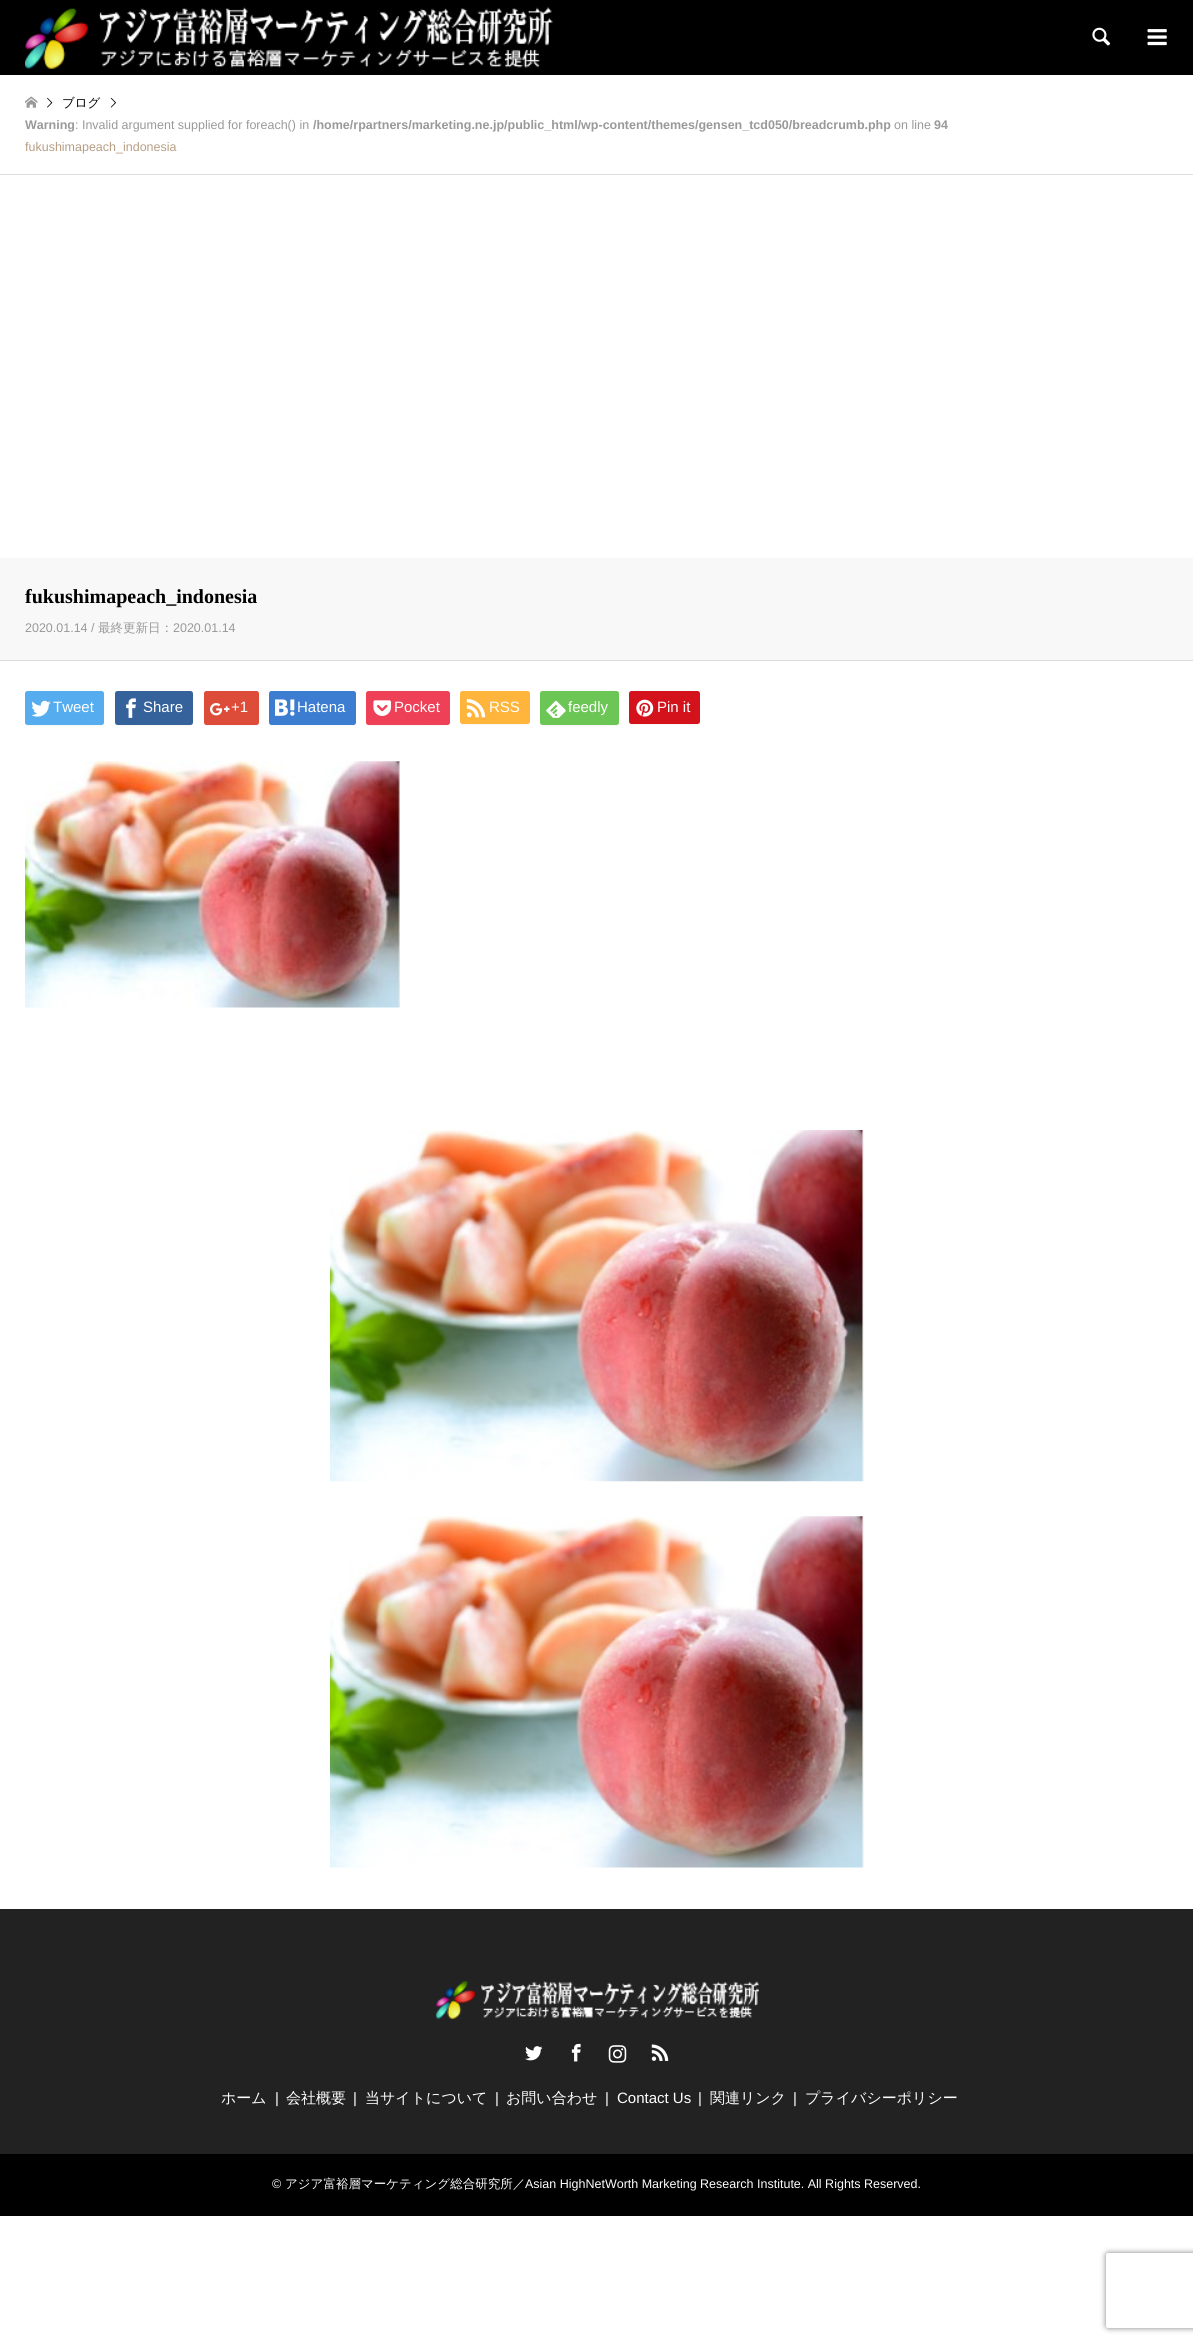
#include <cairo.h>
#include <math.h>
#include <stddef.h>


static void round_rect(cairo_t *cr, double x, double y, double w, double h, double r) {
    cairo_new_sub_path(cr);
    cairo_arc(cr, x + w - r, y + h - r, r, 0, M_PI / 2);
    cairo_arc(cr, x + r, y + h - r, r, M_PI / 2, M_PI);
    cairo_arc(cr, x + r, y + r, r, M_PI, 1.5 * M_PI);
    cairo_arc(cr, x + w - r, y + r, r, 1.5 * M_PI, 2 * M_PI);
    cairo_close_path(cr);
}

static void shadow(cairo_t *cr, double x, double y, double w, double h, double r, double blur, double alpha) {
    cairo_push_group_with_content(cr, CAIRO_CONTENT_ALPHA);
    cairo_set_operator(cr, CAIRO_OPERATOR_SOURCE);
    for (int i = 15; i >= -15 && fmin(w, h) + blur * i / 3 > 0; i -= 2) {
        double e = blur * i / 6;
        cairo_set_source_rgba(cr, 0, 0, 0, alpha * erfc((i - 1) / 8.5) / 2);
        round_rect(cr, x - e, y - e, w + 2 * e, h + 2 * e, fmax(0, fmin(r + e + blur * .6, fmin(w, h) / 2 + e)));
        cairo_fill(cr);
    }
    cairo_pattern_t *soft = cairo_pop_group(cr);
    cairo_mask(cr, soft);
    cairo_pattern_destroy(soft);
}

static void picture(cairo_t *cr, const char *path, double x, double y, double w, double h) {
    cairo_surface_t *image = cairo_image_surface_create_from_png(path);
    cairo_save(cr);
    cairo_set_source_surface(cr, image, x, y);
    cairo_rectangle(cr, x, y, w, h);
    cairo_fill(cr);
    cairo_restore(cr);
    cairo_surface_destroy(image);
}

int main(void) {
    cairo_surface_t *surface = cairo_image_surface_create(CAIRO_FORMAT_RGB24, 1193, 2345);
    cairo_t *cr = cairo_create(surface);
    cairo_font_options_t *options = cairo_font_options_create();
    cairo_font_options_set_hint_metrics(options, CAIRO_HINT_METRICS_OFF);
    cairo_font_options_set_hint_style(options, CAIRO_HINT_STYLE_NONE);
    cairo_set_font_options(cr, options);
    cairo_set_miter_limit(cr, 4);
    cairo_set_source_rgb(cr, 1, 1, 1);
    cairo_paint(cr);
    cairo_set_source_rgb(cr, 0, 0, 0);
    cairo_rectangle(cr, 0, 0, 1193, 75);
    cairo_fill(cr);
    picture(cr, "img1.png", 25, 7, 528, 62);
    picture(cr, "img2.png", 1092, 27, 19, 19);
    picture(cr, "img3.png", 1147, 29, 20, 17);
    cairo_set_source_rgb(cr, 0.867, 0.867, 0.867);
    cairo_rectangle(cr, 0, 174, 1193, 1);
    cairo_fill(cr);
    picture(cr, "img4.png", 25, 96, 13, 12);
    picture(cr, "img5.png", 47, 97, 6, 11);
    cairo_select_font_face(cr, "WenQuanYi Zen Hei Medium", CAIRO_FONT_SLANT_NORMAL, CAIRO_FONT_WEIGHT_NORMAL);
    cairo_set_font_size(cr, 12.5);
    cairo_set_source_rgb(cr, 0, 0, 0);
    cairo_move_to(cr, 62, 107);
    cairo_show_text(cr, "ブログ");
    picture(cr, "img6.png", 110, 97, 6, 11);
    cairo_select_font_face(cr, "Liberation Sans", CAIRO_FONT_SLANT_NORMAL, CAIRO_FONT_WEIGHT_BOLD);
    cairo_set_source_rgb(cr, 0.6, 0.6, 0.6);
    cairo_move_to(cr, 25, 129);
    cairo_show_text(cr, "Warning");
    cairo_select_font_face(cr, "Liberation Sans", CAIRO_FONT_SLANT_NORMAL, CAIRO_FONT_WEIGHT_NORMAL);
    cairo_move_to(cr, 75, 129);
    cairo_show_text(cr, ": Invalid argument supplied for foreach() in");
    cairo_select_font_face(cr, "Liberation Sans", CAIRO_FONT_SLANT_NORMAL, CAIRO_FONT_WEIGHT_BOLD);
    cairo_move_to(cr, 313, 129);
    cairo_show_text(cr, "/home/rpartners/marketing.ne.jp/public_html/wp-content/themes/gensen_tcd050/breadcrumb.php");
    cairo_select_font_face(cr, "Liberation Sans", CAIRO_FONT_SLANT_NORMAL, CAIRO_FONT_WEIGHT_NORMAL);
    cairo_move_to(cr, 894, 129);
    cairo_show_text(cr, "on line");
    cairo_select_font_face(cr, "Liberation Sans", CAIRO_FONT_SLANT_NORMAL, CAIRO_FONT_WEIGHT_BOLD);
    cairo_move_to(cr, 934, 129);
    cairo_show_text(cr, "94");
    cairo_select_font_face(cr, "Liberation Sans", CAIRO_FONT_SLANT_NORMAL, CAIRO_FONT_WEIGHT_NORMAL);
    cairo_set_source_rgb(cr, 0.714, 0.62, 0.518);
    cairo_move_to(cr, 25, 151);
    cairo_show_text(cr, "fukushimapeach_indonesia");
    cairo_set_source_rgb(cr, 0.969, 0.969, 0.969);
    cairo_rectangle(cr, 0, 558, 1193, 102);
    cairo_fill(cr);
    cairo_set_source_rgb(cr, 0.867, 0.867, 0.867);
    cairo_rectangle(cr, 0, 660, 1193, 1);
    cairo_fill(cr);
    cairo_select_font_face(cr, "Liberation Serif", CAIRO_FONT_SLANT_NORMAL, CAIRO_FONT_WEIGHT_BOLD);
    cairo_set_font_size(cr, 20);
    cairo_set_source_rgb(cr, 0, 0, 0);
    cairo_move_to(cr, 25, 603);
    cairo_show_text(cr, "fukushimapeach_indonesia");
    cairo_select_font_face(cr, "Liberation Sans", CAIRO_FONT_SLANT_NORMAL, CAIRO_FONT_WEIGHT_NORMAL);
    cairo_set_font_size(cr, 12.5);
    cairo_set_source_rgb(cr, 0.6, 0.6, 0.6);
    cairo_move_to(cr, 25, 632);
    cairo_show_text(cr, "2020.01.14 /");
    cairo_select_font_face(cr, "WenQuanYi Zen Hei Medium", CAIRO_FONT_SLANT_NORMAL, CAIRO_FONT_WEIGHT_NORMAL);
    cairo_move_to(cr, 98, 632);
    cairo_show_text(cr, "最終更新日：");
    cairo_select_font_face(cr, "Liberation Sans", CAIRO_FONT_SLANT_NORMAL, CAIRO_FONT_WEIGHT_NORMAL);
    cairo_move_to(cr, 173, 632);
    cairo_show_text(cr, "2020.01.14");
    cairo_set_source_rgb(cr, 0.969, 0.969, 0.969);
    cairo_new_path(cr);
    cairo_move_to(cr, 25, 722);
    cairo_curve_to(cr, 25, 724, 25, 725, 27, 726);
    cairo_line_to(cr, 89, 726);
    cairo_curve_to(cr, 106, 726, 104, 729, 104, 714);
    cairo_line_to(cr, 104, 694);
    cairo_line_to(cr, 104, 722);
    cairo_curve_to(cr, 104, 724, 103, 725, 101, 725);
    cairo_line_to(cr, 28, 725);
    cairo_curve_to(cr, 26, 725, 25, 724, 25, 722);
    cairo_close_path(cr);
    cairo_fill(cr);
    cairo_set_source_rgb(cr, 0.333, 0.675, 0.933);
    round_rect(cr, 25, 691, 79, 34, 2.5);
    cairo_fill(cr);
    picture(cr, "img7.png", 31, 700, 20, 17);
    cairo_set_font_size(cr, 15);
    cairo_set_source_rgb(cr, 1, 1, 1);
    cairo_move_to(cr, 53, 712);
    cairo_show_text(cr, "Tweet");
    cairo_set_source_rgb(cr, 0.969, 0.969, 0.969);
    cairo_new_path(cr);
    cairo_move_to(cr, 115, 722);
    cairo_curve_to(cr, 115, 729, 126, 726, 130, 726);
    cairo_line_to(cr, 178, 726);
    cairo_curve_to(cr, 197, 726, 193, 728, 193, 710);
    cairo_curve_to(cr, 193, 707, 194, 696, 192, 694);
    cairo_line_to(cr, 192, 722);
    cairo_curve_to(cr, 192, 724, 191, 725, 190, 725);
    cairo_line_to(cr, 118, 725);
    cairo_curve_to(cr, 116, 725, 115, 724, 115, 722);
    cairo_close_path(cr);
    cairo_fill(cr);
    cairo_set_source_rgb(cr, 0.208, 0.384, 0.604);
    round_rect(cr, 115, 691, 78, 34, 2.5);
    cairo_fill(cr);
    picture(cr, "img8.png", 126, 698, 10, 20);
    cairo_set_source_rgb(cr, 1, 1, 1);
    cairo_move_to(cr, 143, 712);
    cairo_show_text(cr, "Share");
    cairo_set_source_rgb(cr, 0.969, 0.969, 0.969);
    cairo_new_path(cr);
    cairo_move_to(cr, 204, 724);
    cairo_curve_to(cr, 204, 728, 214, 726, 215, 726);
    cairo_line_to(cr, 248, 726);
    cairo_curve_to(cr, 261, 726, 259, 727, 259, 714);
    cairo_line_to(cr, 259, 694);
    cairo_line_to(cr, 259, 722);
    cairo_curve_to(cr, 259, 724, 258, 725, 256, 725);
    cairo_line_to(cr, 206, 725);
    cairo_curve_to(cr, 205, 725, 204, 724, 204, 724);
    cairo_close_path(cr);
    cairo_fill(cr);
    cairo_set_source_rgb(cr, 0.867, 0.294, 0.224);
    round_rect(cr, 204, 691, 55, 34, 2.5);
    cairo_fill(cr);
    picture(cr, "img9.png", 210, 703, 20, 13);
    cairo_set_source_rgb(cr, 1, 1, 1);
    cairo_move_to(cr, 231, 712);
    cairo_show_text(cr, "+1");
    cairo_set_source_rgb(cr, 0.969, 0.969, 0.969);
    cairo_new_path(cr);
    cairo_move_to(cr, 269, 724);
    cairo_curve_to(cr, 269, 725, 270, 726, 272, 726);
    cairo_line_to(cr, 354, 726);
    cairo_curve_to(cr, 355, 726, 356, 725, 356, 724);
    cairo_curve_to(cr, 356, 724, 355, 725, 354, 725);
    cairo_line_to(cr, 271, 725);
    cairo_close_path(cr);
    cairo_fill(cr);
    cairo_set_source_rgb(cr, 0.235, 0.49, 0.82);
    round_rect(cr, 269, 691, 87, 34, 2.5);
    cairo_fill(cr);
    picture(cr, "img10.png", 275, 699, 20, 17);
    cairo_set_source_rgb(cr, 1, 1, 1);
    cairo_move_to(cr, 297, 712);
    cairo_show_text(cr, "Hatena");
    cairo_set_source_rgb(cr, 0.969, 0.969, 0.969);
    cairo_new_path(cr);
    cairo_move_to(cr, 366, 694);
    cairo_line_to(cr, 366, 714);
    cairo_curve_to(cr, 366, 729, 364, 726, 382, 726);
    cairo_line_to(cr, 408, 726);
    cairo_curve_to(cr, 413, 726, 448, 727, 449, 725);
    cairo_line_to(cr, 450, 722);
    cairo_curve_to(cr, 450, 724, 449, 725, 448, 725);
    cairo_line_to(cr, 369, 725);
    cairo_curve_to(cr, 367, 725, 366, 724, 366, 722);
    cairo_close_path(cr);
    cairo_fill(cr);
    cairo_set_source_rgb(cr, 0.933, 0.251, 0.337);
    round_rect(cr, 366, 691, 84, 34, 2.5);
    cairo_fill(cr);
    picture(cr, "img11.png", 373, 700, 18, 16);
    cairo_set_source_rgb(cr, 1, 1, 1);
    cairo_move_to(cr, 394, 712);
    cairo_show_text(cr, "Pocket");
    cairo_set_source_rgb(cr, 0.969, 0.969, 0.969);
    cairo_new_path(cr);
    cairo_move_to(cr, 460, 721);
    cairo_curve_to(cr, 460, 728, 469, 725, 473, 725);
    cairo_line_to(cr, 517, 725);
    cairo_curve_to(cr, 521, 725, 530, 728, 530, 721);
    cairo_curve_to(cr, 530, 723, 529, 724, 528, 724);
    cairo_line_to(cr, 462, 724);
    cairo_curve_to(cr, 461, 724, 460, 723, 460, 721);
    cairo_close_path(cr);
    cairo_fill(cr);
    cairo_set_source_rgb(cr, 1, 0.71, 0.235);
    round_rect(cr, 460, 691, 70, 33, 2.5);
    cairo_fill(cr);
    picture(cr, "img12.png", 466, 699, 20, 19);
    cairo_set_source_rgb(cr, 1, 1, 1);
    cairo_move_to(cr, 489, 712);
    cairo_show_text(cr, "RSS");
    cairo_set_source_rgb(cr, 0.969, 0.969, 0.969);
    cairo_new_path(cr);
    cairo_move_to(cr, 540, 722);
    cairo_curve_to(cr, 540, 724, 540, 725, 542, 726);
    cairo_line_to(cr, 604, 726);
    cairo_curve_to(cr, 621, 726, 619, 729, 619, 714);
    cairo_line_to(cr, 619, 694);
    cairo_line_to(cr, 619, 722);
    cairo_curve_to(cr, 619, 724, 618, 725, 616, 725);
    cairo_line_to(cr, 542, 725);
    cairo_curve_to(cr, 541, 725, 540, 724, 540, 722);
    cairo_close_path(cr);
    cairo_fill(cr);
    cairo_set_source_rgb(cr, 0.424, 0.776, 0.333);
    round_rect(cr, 540, 691, 79, 34, 2.5);
    cairo_fill(cr);
    picture(cr, "img13.png", 546, 700, 20, 18);
    cairo_set_source_rgb(cr, 1, 1, 1);
    cairo_move_to(cr, 568, 712);
    cairo_show_text(cr, "feedly");
    cairo_set_source_rgb(cr, 0.969, 0.969, 0.969);
    cairo_new_path(cr);
    cairo_move_to(cr, 629, 722);
    cairo_curve_to(cr, 629, 724, 630, 725, 632, 725);
    cairo_line_to(cr, 686, 725);
    cairo_curve_to(cr, 691, 725, 700, 728, 700, 721);
    cairo_line_to(cr, 699, 723);
    cairo_line_to(cr, 698, 724);
    cairo_line_to(cr, 631, 724);
    cairo_close_path(cr);
    cairo_fill(cr);
    cairo_set_source_rgb(cr, 0.831, 0.071, 0.11);
    round_rect(cr, 629, 691, 71, 33, 2.5);
    cairo_fill(cr);
    picture(cr, "img14.png", 636, 699, 18, 18);
    cairo_set_source_rgb(cr, 1, 1, 1);
    cairo_move_to(cr, 657, 712);
    cairo_show_text(cr, "Pin it");
    picture(cr, "img15.png", 25, 761, 375, 247);
    picture(cr, "img16.png", 330, 1130, 534, 352);
    picture(cr, "img17.png", 330, 1516, 534, 352);
    cairo_set_source_rgb(cr, 0.133, 0.133, 0.133);
    cairo_rectangle(cr, 0, 1909, 1193, 245);
    cairo_fill(cr);
    picture(cr, "img18.png", 436, 1981, 323, 38);
    picture(cr, "img19.png", 525, 2046, 18, 15);
    picture(cr, "img20.png", 571, 2043, 10, 19);
    picture(cr, "img21.png", 608, 2045, 19, 18);
    picture(cr, "img22.png", 651, 2044, 18, 17);
    cairo_select_font_face(cr, "WenQuanYi Zen Hei Medium", CAIRO_FONT_SLANT_NORMAL, CAIRO_FONT_WEIGHT_NORMAL);
    cairo_set_source_rgb(cr, 1, 1, 1);
    cairo_move_to(cr, 221, 2103);
    cairo_show_text(cr, "ホーム");
    cairo_select_font_face(cr, "Liberation Sans", CAIRO_FONT_SLANT_NORMAL, CAIRO_FONT_WEIGHT_NORMAL);
    cairo_move_to(cr, 275, 2103);
    cairo_show_text(cr, "|");
    cairo_select_font_face(cr, "WenQuanYi Zen Hei Medium", CAIRO_FONT_SLANT_NORMAL, CAIRO_FONT_WEIGHT_NORMAL);
    cairo_move_to(cr, 286, 2103);
    cairo_show_text(cr, "会社概要");
    cairo_select_font_face(cr, "Liberation Sans", CAIRO_FONT_SLANT_NORMAL, CAIRO_FONT_WEIGHT_NORMAL);
    cairo_move_to(cr, 353, 2103);
    cairo_show_text(cr, "|");
    cairo_select_font_face(cr, "WenQuanYi Zen Hei Medium", CAIRO_FONT_SLANT_NORMAL, CAIRO_FONT_WEIGHT_NORMAL);
    cairo_move_to(cr, 365, 2103);
    cairo_show_text(cr, "当サイトについて");
    cairo_select_font_face(cr, "Liberation Sans", CAIRO_FONT_SLANT_NORMAL, CAIRO_FONT_WEIGHT_NORMAL);
    cairo_move_to(cr, 495, 2103);
    cairo_show_text(cr, "|");
    cairo_select_font_face(cr, "WenQuanYi Zen Hei Medium", CAIRO_FONT_SLANT_NORMAL, CAIRO_FONT_WEIGHT_NORMAL);
    cairo_move_to(cr, 506, 2103);
    cairo_show_text(cr, "お問い合わせ");
    cairo_select_font_face(cr, "Liberation Sans", CAIRO_FONT_SLANT_NORMAL, CAIRO_FONT_WEIGHT_NORMAL);
    cairo_move_to(cr, 605, 2103);
    cairo_show_text(cr, "|");
    cairo_move_to(cr, 617, 2103);
    cairo_show_text(cr, "Contact Us");
    cairo_move_to(cr, 698, 2103);
    cairo_show_text(cr, "|");
    cairo_select_font_face(cr, "WenQuanYi Zen Hei Medium", CAIRO_FONT_SLANT_NORMAL, CAIRO_FONT_WEIGHT_NORMAL);
    cairo_move_to(cr, 710, 2103);
    cairo_show_text(cr, "関連リンク");
    cairo_select_font_face(cr, "Liberation Sans", CAIRO_FONT_SLANT_NORMAL, CAIRO_FONT_WEIGHT_NORMAL);
    cairo_move_to(cr, 793, 2103);
    cairo_show_text(cr, "|");
    cairo_select_font_face(cr, "WenQuanYi Zen Hei Medium", CAIRO_FONT_SLANT_NORMAL, CAIRO_FONT_WEIGHT_NORMAL);
    cairo_move_to(cr, 805, 2103);
    cairo_show_text(cr, "プライバシーポリシー");
    cairo_set_source_rgb(cr, 0, 0, 0);
    cairo_rectangle(cr, 0, 2154, 1193, 62);
    cairo_fill(cr);
    cairo_select_font_face(cr, "Liberation Sans", CAIRO_FONT_SLANT_NORMAL, CAIRO_FONT_WEIGHT_NORMAL);
    cairo_set_font_size(cr, 12.5);
    cairo_set_source_rgb(cr, 1, 1, 1);
    cairo_move_to(cr, 272, 2188);
    cairo_show_text(cr, "©");
    cairo_select_font_face(cr, "WenQuanYi Zen Hei Medium", CAIRO_FONT_SLANT_NORMAL, CAIRO_FONT_WEIGHT_NORMAL);
    cairo_move_to(cr, 285, 2188);
    cairo_show_text(cr, "アジア富裕層マーケティング総合研究所／");
    cairo_select_font_face(cr, "Liberation Sans", CAIRO_FONT_SLANT_NORMAL, CAIRO_FONT_WEIGHT_NORMAL);
    cairo_move_to(cr, 525, 2188);
    cairo_show_text(cr, "Asian HighNetWorth Marketing Research Institute. All Rights Reserved.");
    cairo_save(cr);
    cairo_set_fill_rule(cr, CAIRO_FILL_RULE_EVEN_ODD);
    cairo_new_path(cr);
    cairo_move_to(cr, 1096, 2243);
    cairo_line_to(cr, 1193, 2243);
    cairo_line_to(cr, 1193, 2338);
    cairo_line_to(cr, 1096, 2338);
    cairo_close_path(cr);
    cairo_move_to(cr, 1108.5, 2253);
    cairo_line_to(cr, 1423.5, 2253);
    cairo_curve_to(cr, 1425, 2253, 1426, 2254, 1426, 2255.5);
    cairo_line_to(cr, 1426, 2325.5);
    cairo_curve_to(cr, 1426, 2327, 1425, 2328, 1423.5, 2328);
    cairo_line_to(cr, 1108.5, 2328);
    cairo_curve_to(cr, 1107, 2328, 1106, 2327, 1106, 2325.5);
    cairo_line_to(cr, 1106, 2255.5);
    cairo_curve_to(cr, 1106, 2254, 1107, 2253, 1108.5, 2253);
    cairo_close_path(cr);
    cairo_clip(cr);
    cairo_set_source_rgb(cr, 0.502, 0.502, 0.502);
    shadow(cr, 1106, 2253, 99, 75, 2.5, 3, 1);
    cairo_restore(cr);
    cairo_surface_write_to_png(surface, "page.png");
    cairo_font_options_destroy(options);
    cairo_destroy(cr);
    cairo_surface_destroy(surface);
    return 0;
}
